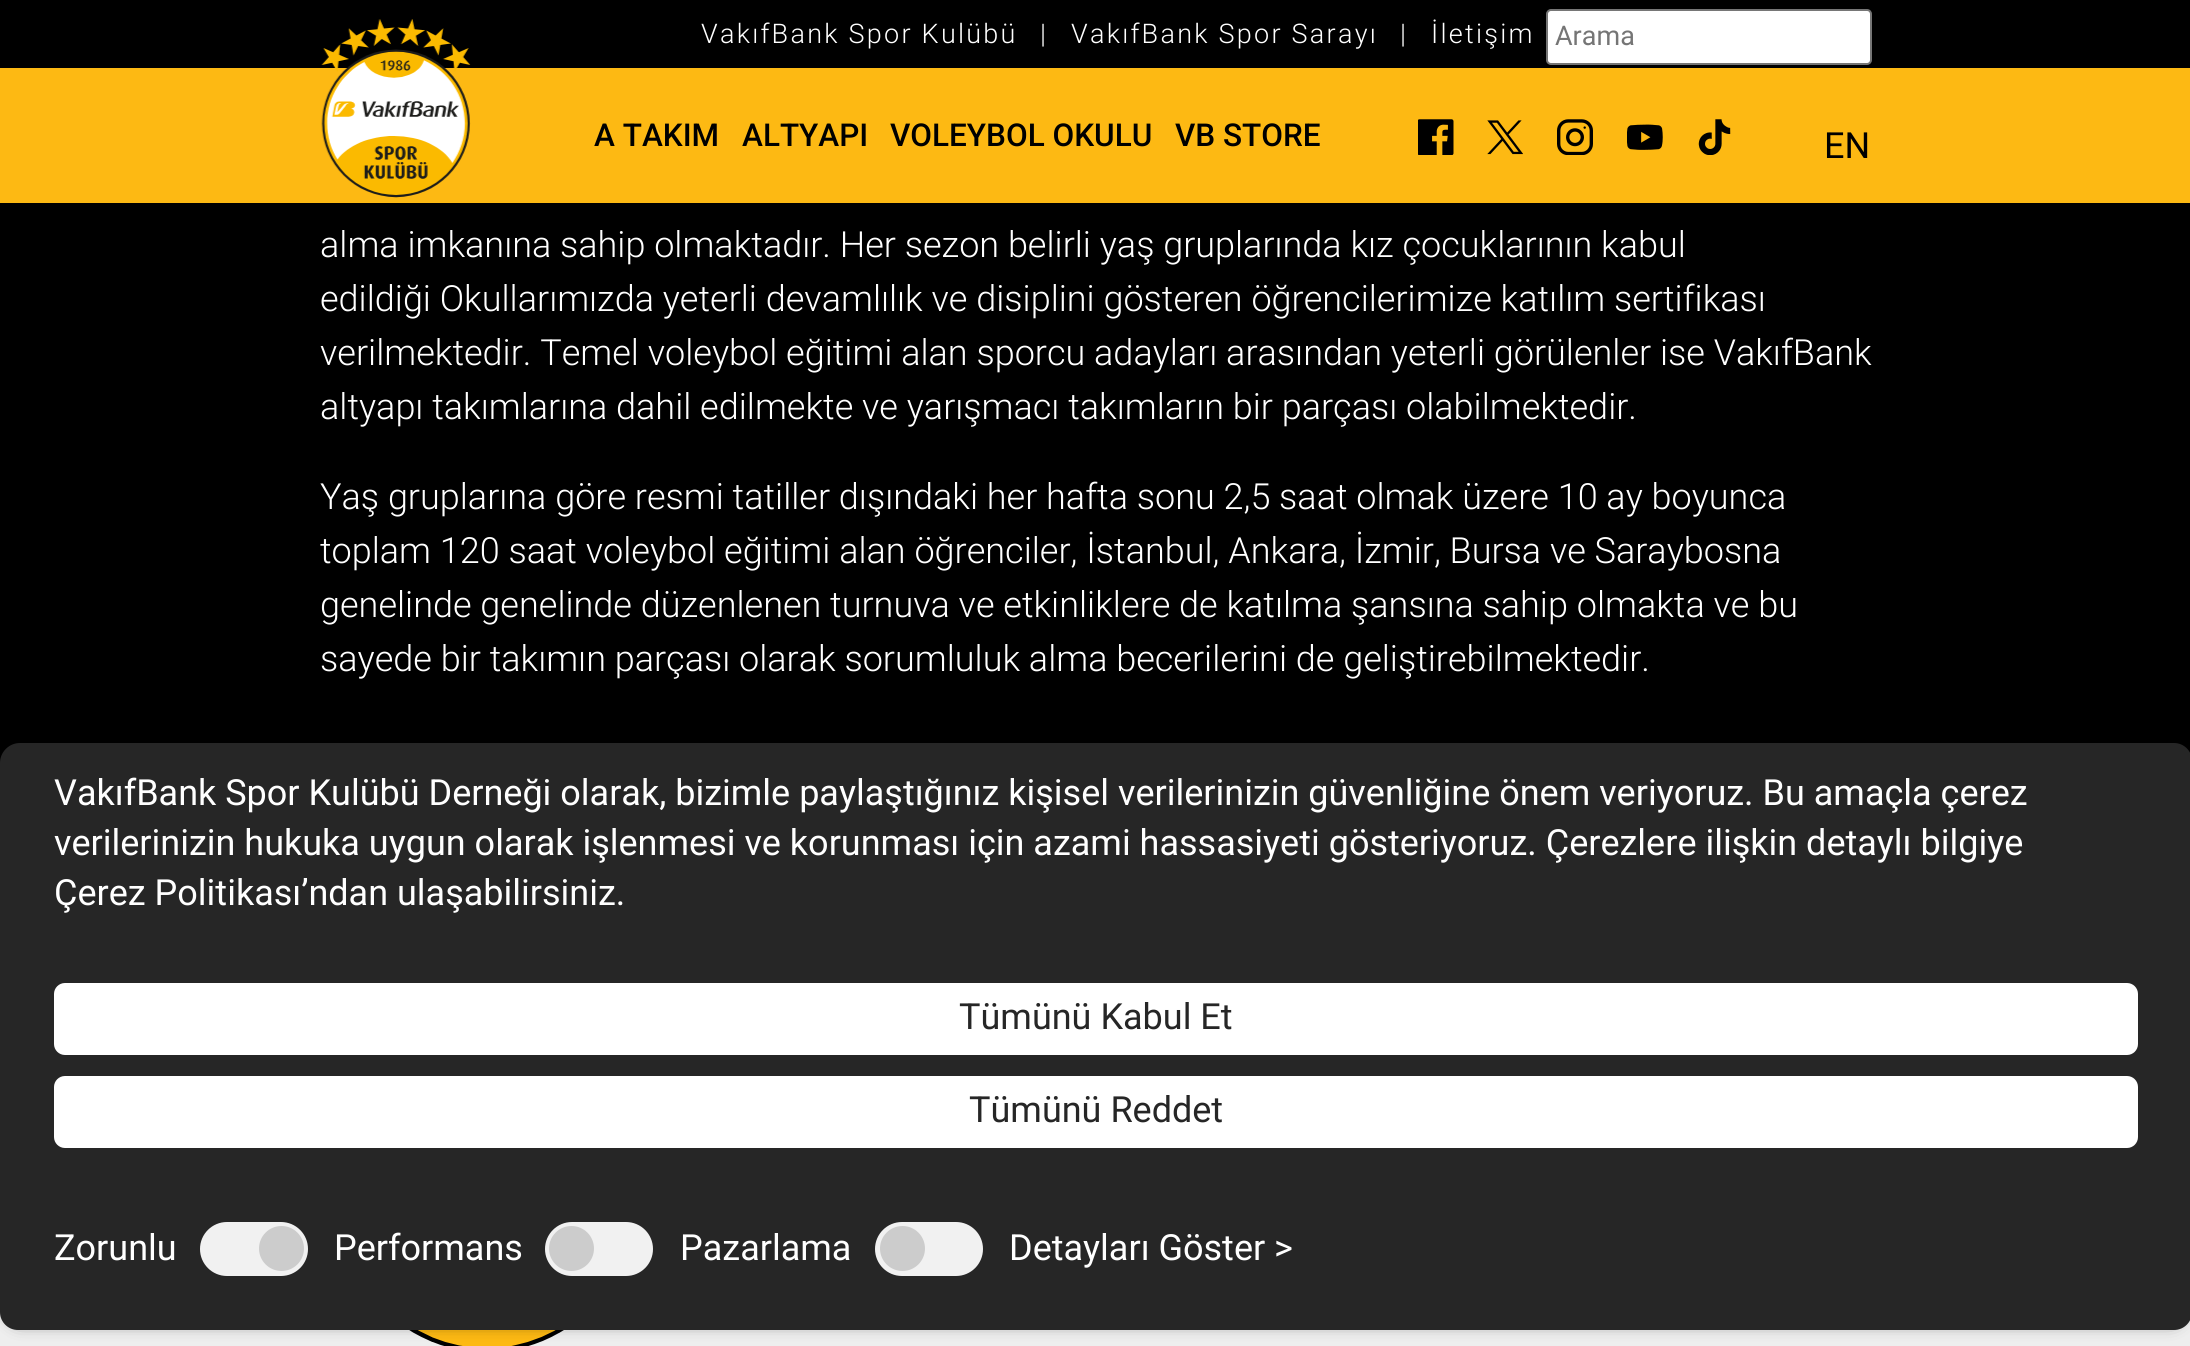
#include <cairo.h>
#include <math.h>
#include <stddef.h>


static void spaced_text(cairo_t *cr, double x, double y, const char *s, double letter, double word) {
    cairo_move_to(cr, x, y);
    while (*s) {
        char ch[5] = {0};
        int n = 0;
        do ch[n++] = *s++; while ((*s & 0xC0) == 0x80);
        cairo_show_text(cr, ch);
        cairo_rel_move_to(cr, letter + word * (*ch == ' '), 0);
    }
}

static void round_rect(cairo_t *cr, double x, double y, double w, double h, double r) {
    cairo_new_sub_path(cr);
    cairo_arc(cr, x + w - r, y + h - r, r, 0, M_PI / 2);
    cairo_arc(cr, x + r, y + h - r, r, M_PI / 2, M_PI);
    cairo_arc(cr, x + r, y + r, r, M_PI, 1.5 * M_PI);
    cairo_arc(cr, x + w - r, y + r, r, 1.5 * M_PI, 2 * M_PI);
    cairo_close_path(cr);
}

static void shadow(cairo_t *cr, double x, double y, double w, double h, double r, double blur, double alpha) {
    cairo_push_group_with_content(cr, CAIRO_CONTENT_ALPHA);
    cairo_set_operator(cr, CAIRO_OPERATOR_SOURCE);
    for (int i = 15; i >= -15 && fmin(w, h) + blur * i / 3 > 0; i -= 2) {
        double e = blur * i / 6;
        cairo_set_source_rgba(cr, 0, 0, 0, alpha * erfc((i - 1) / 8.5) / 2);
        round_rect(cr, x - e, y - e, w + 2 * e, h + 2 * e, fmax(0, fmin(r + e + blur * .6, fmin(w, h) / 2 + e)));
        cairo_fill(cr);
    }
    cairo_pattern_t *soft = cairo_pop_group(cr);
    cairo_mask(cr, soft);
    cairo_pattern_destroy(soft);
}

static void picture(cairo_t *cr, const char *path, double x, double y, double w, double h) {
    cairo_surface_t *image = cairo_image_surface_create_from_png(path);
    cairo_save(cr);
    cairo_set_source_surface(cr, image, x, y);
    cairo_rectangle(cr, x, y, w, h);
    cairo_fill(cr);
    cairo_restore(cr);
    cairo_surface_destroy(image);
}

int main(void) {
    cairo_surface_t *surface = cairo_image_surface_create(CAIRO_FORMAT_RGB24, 2190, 1346);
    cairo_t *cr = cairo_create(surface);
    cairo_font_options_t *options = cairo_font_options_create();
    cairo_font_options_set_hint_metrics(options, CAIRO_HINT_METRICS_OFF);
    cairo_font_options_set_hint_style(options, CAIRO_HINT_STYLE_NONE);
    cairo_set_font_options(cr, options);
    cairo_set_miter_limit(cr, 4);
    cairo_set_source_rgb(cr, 0.933, 0.933, 0.933);
    cairo_paint(cr);
    cairo_set_source_rgb(cr, 0, 0, 0);
    cairo_rectangle(cr, 0, 0, 2190, 68);
    cairo_fill(cr);
    cairo_select_font_face(cr, "Roboto Light", CAIRO_FONT_SLANT_NORMAL, CAIRO_FONT_WEIGHT_NORMAL);
    cairo_set_font_size(cr, 27);
    cairo_set_source_rgb(cr, 1, 1, 1);
    spaced_text(cr, 701, 43, "VakıfBank Spor Kulübü", 2.25, 0);
    spaced_text(cr, 1040, 43, "|", 2.25, 0);
    spaced_text(cr, 1071, 43, "VakıfBank Spor Sarayı", 2.25, 0);
    spaced_text(cr, 1400, 43, "|", 2.25, 0);
    spaced_text(cr, 1431, 43, "İletişim", 2.25, 0);
    round_rect(cr, 1547, 10, 324, 54, 4);
    cairo_fill_preserve(cr);
    cairo_set_source_rgb(cr, 0.463, 0.463, 0.463);
    cairo_stroke(cr);
    cairo_select_font_face(cr, "Roboto", CAIRO_FONT_SLANT_NORMAL, CAIRO_FONT_WEIGHT_NORMAL);
    cairo_set_source_rgb(cr, 0.459, 0.459, 0.459);
    cairo_move_to(cr, 1555, 45);
    cairo_show_text(cr, "Arama");
    cairo_set_source_rgb(cr, 0.992, 0.725, 0.075);
    cairo_rectangle(cr, 0, 68, 2190, 135);
    cairo_fill(cr);
    picture(cr, "img1.png", 321, 19, 150, 179);
    cairo_select_font_face(cr, "Roboto Medium", CAIRO_FONT_SLANT_NORMAL, CAIRO_FONT_WEIGHT_NORMAL);
    cairo_set_font_size(cr, 31.5);
    cairo_set_source_rgb(cr, 0, 0, 0);
    cairo_move_to(cr, 594, 146);
    cairo_show_text(cr, "A TAKIM");
    cairo_move_to(cr, 742, 146);
    cairo_show_text(cr, "ALTYAPI");
    cairo_move_to(cr, 890, 146);
    cairo_show_text(cr, "VOLEYBOL OKULU");
    cairo_move_to(cr, 1175, 146);
    cairo_show_text(cr, "VB STORE");
    picture(cr, "img2.png", 1418, 119, 36, 36);
    picture(cr, "img3.png", 1487, 120, 36, 35);
    picture(cr, "img4.png", 1557, 119, 36, 36);
    picture(cr, "img5.png", 1627, 124, 36, 26);
    picture(cr, "img6.png", 1698, 119, 33, 36);
    cairo_select_font_face(cr, "Roboto", CAIRO_FONT_SLANT_NORMAL, CAIRO_FONT_WEIGHT_NORMAL);
    cairo_set_font_size(cr, 36);
    cairo_move_to(cr, 1824, 158);
    cairo_show_text(cr, "EN");
    cairo_rectangle(cr, 0, 203, 2190, 560);
    cairo_fill(cr);
    cairo_select_font_face(cr, "Roboto Light", CAIRO_FONT_SLANT_NORMAL, CAIRO_FONT_WEIGHT_NORMAL);
    cairo_set_source_rgb(cr, 1, 1, 1);
    cairo_move_to(cr, 320, 257);
    cairo_show_text(cr, "alma imkanına sahip olmaktadır. Her sezon belirli yaş gruplarında kız çocuklarının kabul");
    cairo_move_to(cr, 320, 311);
    cairo_show_text(cr, "edildiği Okullarımızda yeterli devamlılık ve disiplini gösteren öğrencilerimize katılım sertifikası");
    cairo_move_to(cr, 320, 365);
    cairo_show_text(cr, "verilmektedir. Temel voleybol eğitimi alan sporcu adayları arasından yeterli görülenler ise VakıfBank");
    cairo_move_to(cr, 320, 419);
    cairo_show_text(cr, "altyapı takımlarına dahil edilmekte ve yarışmacı takımların bir parçası olabilmektedir.");
    cairo_move_to(cr, 320, 509);
    cairo_show_text(cr, "Yaş gruplarına göre resmi tatiller dışındaki her hafta sonu 2,5 saat olmak üzere 10 ay boyunca");
    cairo_move_to(cr, 320, 563);
    cairo_show_text(cr, "toplam 120 saat voleybol eğitimi alan öğrenciler, İstanbul, Ankara, İzmir, Bursa ve Saraybosna");
    cairo_move_to(cr, 320, 617);
    cairo_show_text(cr, "genelinde genelinde düzenlenen turnuva ve etkinliklere de katılma şansına sahip olmakta ve bu");
    cairo_move_to(cr, 320, 671);
    cairo_show_text(cr, "sayede bir takımın parçası olarak sorumluluk alma becerilerini de geliştirebilmektedir.");
    picture(cr, "img7.png", 409, 1330, 155, 16);
    cairo_set_source_rgb(cr, 0, 0, 0);
    shadow(cr, 11, 754, 2169, 565, 9, 9, 1);
    cairo_set_source_rgb(cr, 0.149, 0.149, 0.149);
    cairo_new_path(cr);
    cairo_move_to(cr, 20, 743);
    cairo_line_to(cr, 2174, 743);
    cairo_curve_to(cr, 2184, 743, 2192, 751, 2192, 761);
    cairo_line_to(cr, 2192, 1312);
    cairo_curve_to(cr, 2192, 1322, 2184, 1330, 2174, 1330);
    cairo_line_to(cr, 18, 1330);
    cairo_curve_to(cr, 8, 1330, 0, 1322, 0, 1312);
    cairo_line_to(cr, 0, 763);
    cairo_curve_to(cr, 0, 752, 9, 743, 20, 743);
    cairo_close_path(cr);
    cairo_fill(cr);
    cairo_select_font_face(cr, "Roboto", CAIRO_FONT_SLANT_NORMAL, CAIRO_FONT_WEIGHT_NORMAL);
    cairo_set_source_rgb(cr, 1, 1, 1);
    cairo_move_to(cr, 54, 805);
    cairo_show_text(cr, "VakıfBank Spor Kulübü Derneği olarak, bizimle paylaştığınız kişisel verilerinizin güvenliğine önem veriyoruz. Bu amaçla çerez");
    cairo_move_to(cr, 54, 855);
    cairo_show_text(cr, "verilerinizin hukuka uygun olarak işlenmesi ve korunması için azami hassasiyeti gösteriyoruz. Çerezlere ilişkin detaylı bilgiye");
    cairo_move_to(cr, 54, 905);
    cairo_show_text(cr, "Çerez Politikası’ndan ulaşabilirsiniz.");
    round_rect(cr, 54, 983, 2084, 72, 11);
    cairo_fill(cr);
    cairo_set_source_rgb(cr, 0.149, 0.149, 0.149);
    cairo_move_to(cr, 959, 1029);
    cairo_show_text(cr, "Tümünü Kabul Et");
    cairo_set_source_rgb(cr, 1, 1, 1);
    round_rect(cr, 54, 1076, 2084, 72, 11);
    cairo_fill(cr);
    cairo_set_source_rgb(cr, 0.149, 0.149, 0.149);
    cairo_move_to(cr, 969, 1122);
    cairo_show_text(cr, "Tümünü Reddet");
    cairo_set_source_rgb(cr, 1, 1, 1);
    cairo_move_to(cr, 54, 1260);
    cairo_show_text(cr, "Zorunlu");
    cairo_set_source_rgb(cr, 0.945, 0.945, 0.945);
    round_rect(cr, 200, 1222, 108, 54, 27);
    cairo_fill(cr);
    cairo_set_source_rgb(cr, 0.8, 0.8, 0.8);
    cairo_arc(cr, 281.5, 1248.5, 22.5, 0, 2 * M_PI);
    cairo_fill(cr);
    cairo_set_source_rgb(cr, 1, 1, 1);
    cairo_move_to(cr, 334, 1260);
    cairo_show_text(cr, "Performans");
    cairo_set_source_rgb(cr, 0.945, 0.945, 0.945);
    round_rect(cr, 545, 1222, 108, 54, 27);
    cairo_fill(cr);
    cairo_set_source_rgb(cr, 0.8, 0.8, 0.8);
    cairo_arc(cr, 571.5, 1248.5, 22.5, 0, 2 * M_PI);
    cairo_fill(cr);
    cairo_set_source_rgb(cr, 1, 1, 1);
    cairo_move_to(cr, 680, 1260);
    cairo_show_text(cr, "Pazarlama");
    cairo_set_source_rgb(cr, 0.945, 0.945, 0.945);
    round_rect(cr, 875, 1222, 108, 54, 27);
    cairo_fill(cr);
    cairo_set_source_rgb(cr, 0.8, 0.8, 0.8);
    cairo_arc(cr, 902.5, 1248.5, 22.5, 0, 2 * M_PI);
    cairo_fill(cr);
    cairo_set_source_rgb(cr, 1, 1, 1);
    cairo_move_to(cr, 1009, 1260);
    cairo_show_text(cr, "Detayları Göster >");
    cairo_surface_write_to_png(surface, "page.png");
    cairo_font_options_destroy(options);
    cairo_destroy(cr);
    cairo_surface_destroy(surface);
    return 0;
}
